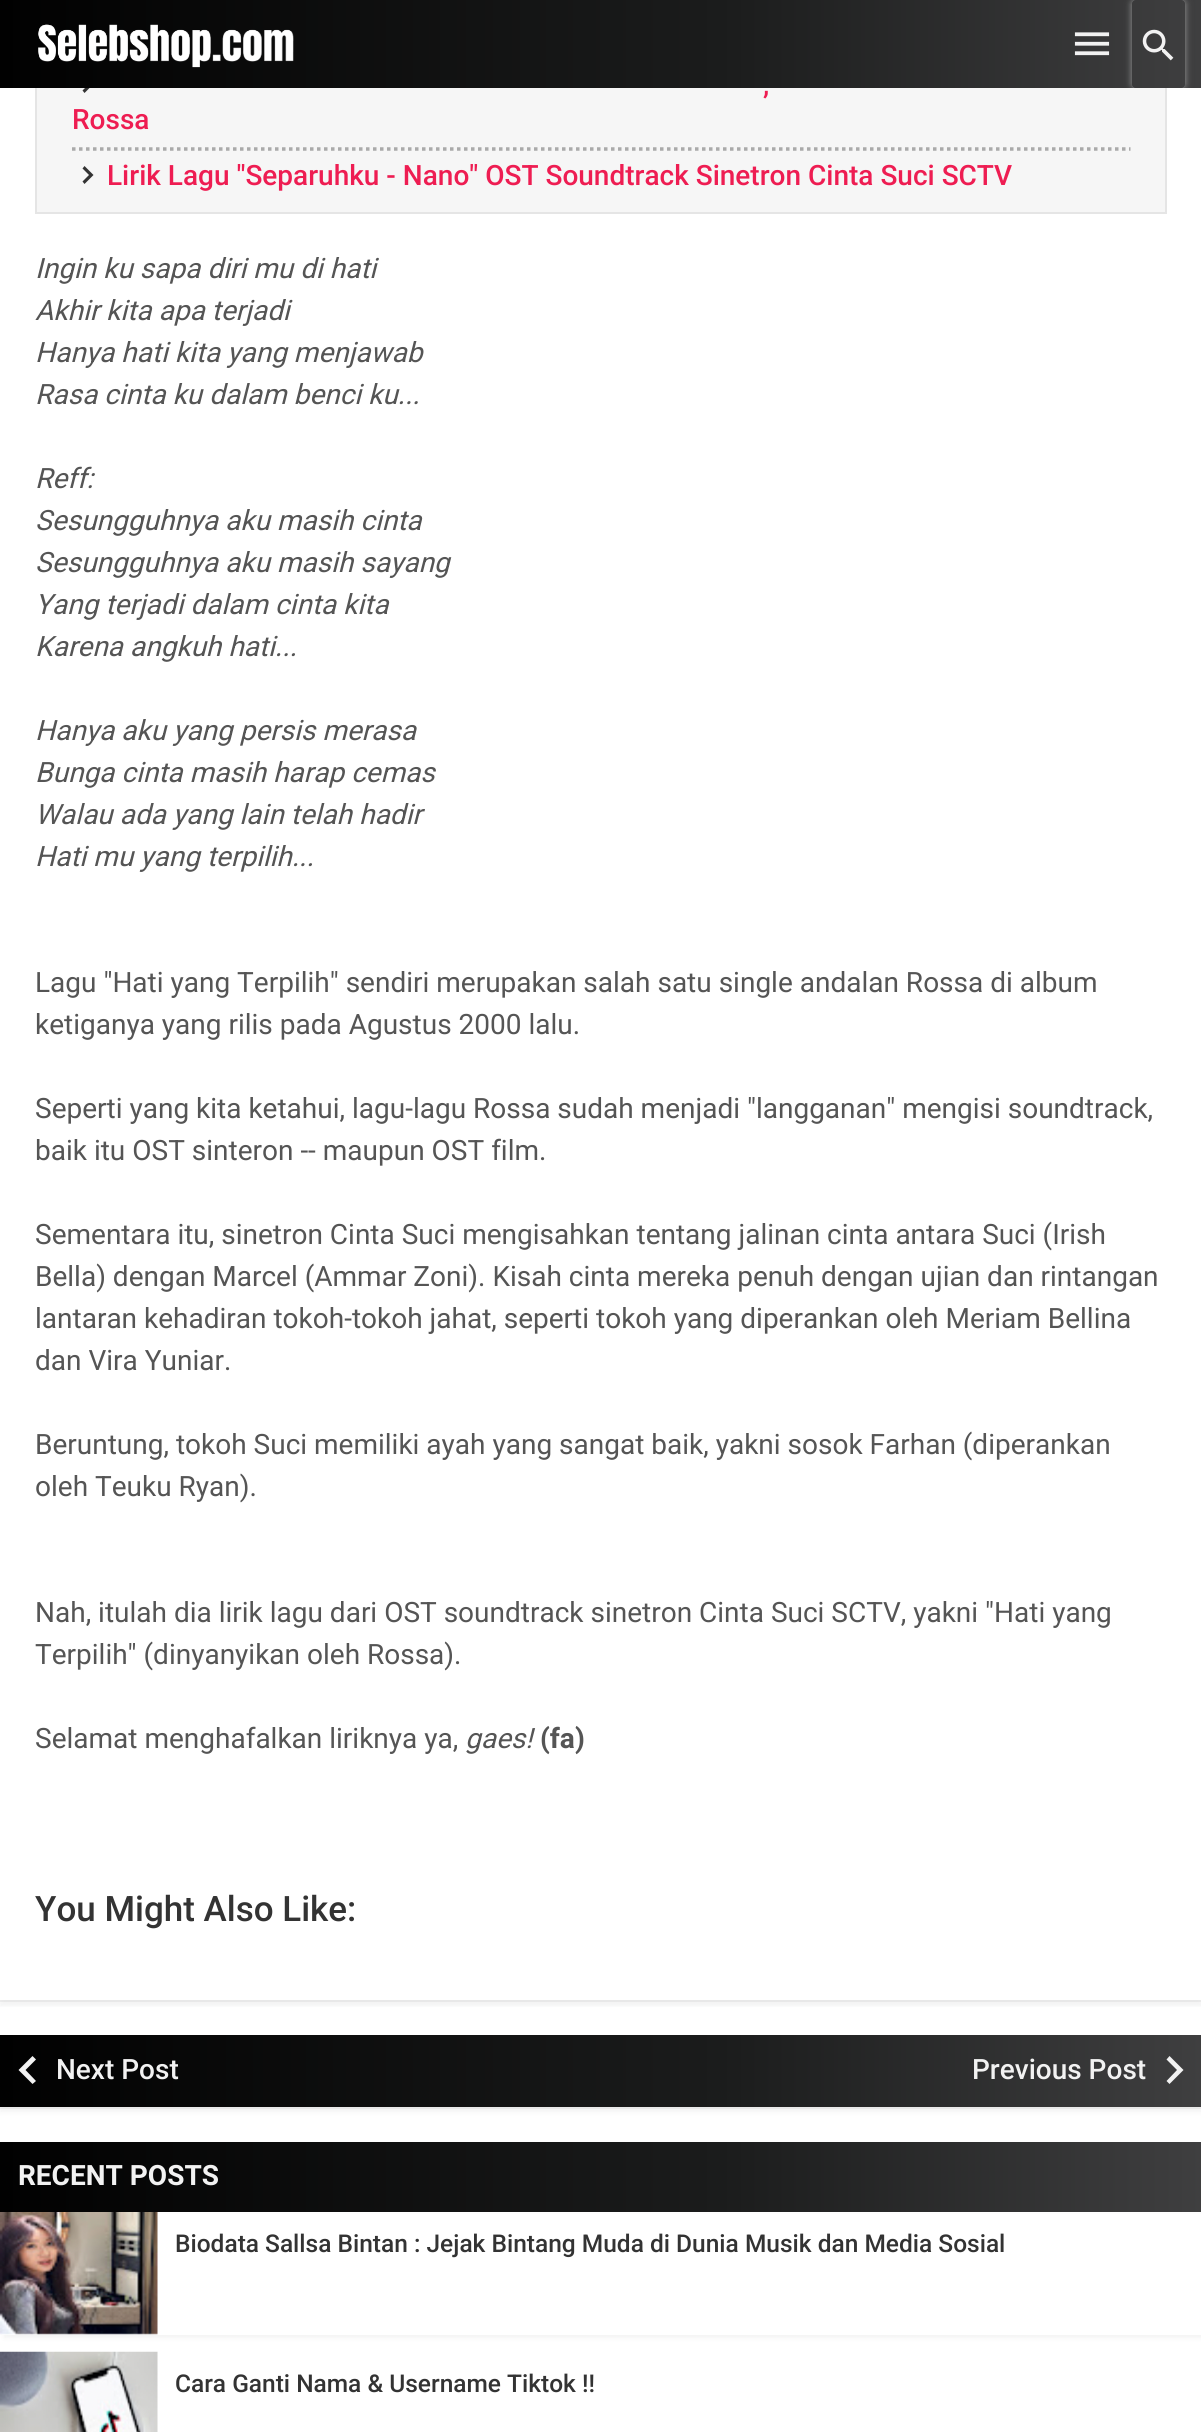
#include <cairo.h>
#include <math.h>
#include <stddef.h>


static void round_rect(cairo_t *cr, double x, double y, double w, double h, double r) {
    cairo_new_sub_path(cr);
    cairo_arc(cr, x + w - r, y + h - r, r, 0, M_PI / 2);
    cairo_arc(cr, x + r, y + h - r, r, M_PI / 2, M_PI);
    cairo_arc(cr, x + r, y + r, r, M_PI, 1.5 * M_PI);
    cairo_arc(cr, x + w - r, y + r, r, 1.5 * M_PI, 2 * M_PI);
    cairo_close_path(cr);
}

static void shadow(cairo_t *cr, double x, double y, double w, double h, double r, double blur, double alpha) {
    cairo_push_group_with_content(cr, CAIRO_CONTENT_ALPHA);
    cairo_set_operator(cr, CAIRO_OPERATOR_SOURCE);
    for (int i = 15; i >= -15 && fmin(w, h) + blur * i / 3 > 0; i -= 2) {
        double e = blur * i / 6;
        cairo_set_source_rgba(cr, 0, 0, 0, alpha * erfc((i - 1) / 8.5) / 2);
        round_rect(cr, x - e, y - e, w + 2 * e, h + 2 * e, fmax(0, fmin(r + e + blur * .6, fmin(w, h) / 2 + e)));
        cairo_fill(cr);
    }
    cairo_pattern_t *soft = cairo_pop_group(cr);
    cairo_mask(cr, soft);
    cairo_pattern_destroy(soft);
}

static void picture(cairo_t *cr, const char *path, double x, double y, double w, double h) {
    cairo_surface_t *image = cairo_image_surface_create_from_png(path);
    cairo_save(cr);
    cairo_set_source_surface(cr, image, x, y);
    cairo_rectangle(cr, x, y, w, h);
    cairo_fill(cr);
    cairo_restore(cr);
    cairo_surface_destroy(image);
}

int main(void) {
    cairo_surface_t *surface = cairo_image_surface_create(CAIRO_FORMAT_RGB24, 1201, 2432);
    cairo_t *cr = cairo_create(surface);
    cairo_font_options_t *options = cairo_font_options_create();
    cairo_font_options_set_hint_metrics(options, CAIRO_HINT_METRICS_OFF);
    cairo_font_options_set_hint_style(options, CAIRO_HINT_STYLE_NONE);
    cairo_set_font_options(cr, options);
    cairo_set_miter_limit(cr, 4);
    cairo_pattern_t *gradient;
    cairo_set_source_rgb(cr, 1, 1, 1);
    cairo_paint(cr);
    cairo_save(cr);
    cairo_rectangle(cr, 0, 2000, 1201, 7);
    cairo_clip(cr);
    cairo_set_source_rgb(cr, 0, 0, 0);
    shadow(cr, 0, -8, 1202, 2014, 0, 2.5, 0.05);
    cairo_restore(cr);
    cairo_set_source_rgb(cr, 0.961, 0.961, 0.961);
    cairo_rectangle(cr, 37, 88, 1128, 124);
    cairo_fill(cr);
    cairo_rectangle(cr, 36, -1, 1130, 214);
    cairo_set_source_rgb(cr, 0.898, 0.898, 0.898);
    cairo_stroke(cr);
    cairo_set_source_rgb(cr, 0.2, 0.2, 0.2);
    cairo_new_path(cr);
    cairo_move_to(cr, 82.5, 90.5);
    cairo_line_to(cr, 89, 84);
    cairo_line_to(cr, 82.5, 77.5);
    cairo_line_to(cr, 84.5, 75);
    cairo_line_to(cr, 93.5, 84);
    cairo_line_to(cr, 84.5, 93);
    cairo_close_path(cr);
    cairo_fill(cr);
    gradient = cairo_pattern_create_linear(0, 44, 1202, 44);
    cairo_pattern_add_color_stop_rgba(gradient, 0, 0.004, 0.004, 0.004, 1);
    cairo_pattern_add_color_stop_rgba(gradient, 0.6, 0.106, 0.11, 0.11, 1);
    cairo_pattern_add_color_stop_rgba(gradient, 1, 0.247, 0.247, 0.251, 1);
    cairo_set_source(cr, gradient);
    cairo_pattern_destroy(gradient);
    cairo_rectangle(cr, 0, 0, 1201, 88);
    cairo_fill(cr);
    picture(cr, "img1.png", 38, 24, 256, 44);
    picture(cr, "img2.png", 1074, 32, 36, 24);
    cairo_save(cr);
    cairo_rectangle(cr, 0, 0, 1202, 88);
    cairo_clip(cr);
    cairo_set_fill_rule(cr, CAIRO_FILL_RULE_EVEN_ODD);
    cairo_new_path(cr);
    cairo_move_to(cr, 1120, 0);
    cairo_line_to(cr, 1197, 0);
    cairo_line_to(cr, 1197, 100);
    cairo_line_to(cr, 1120, 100);
    cairo_close_path(cr);
    cairo_move_to(cr, 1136, 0);
    cairo_line_to(cr, 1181, 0);
    cairo_curve_to(cr, 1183, 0, 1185, 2, 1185, 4);
    cairo_line_to(cr, 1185, 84);
    cairo_curve_to(cr, 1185, 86, 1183, 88, 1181, 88);
    cairo_line_to(cr, 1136, 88);
    cairo_curve_to(cr, 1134, 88, 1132, 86, 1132, 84);
    cairo_line_to(cr, 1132, 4);
    cairo_curve_to(cr, 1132, 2, 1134, 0, 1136, 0);
    cairo_close_path(cr);
    cairo_clip(cr);
    cairo_set_source_rgb(cr, 0.6, 0.6, 0.6);
    shadow(cr, 1132, 0, 53, 88, 4, 3.5, 1);
    cairo_restore(cr);
    picture(cr, "img3.png", 1142, 29, 32, 32);
    cairo_set_source_rgba(cr, 0, 0, 0, 0.05);
    cairo_rectangle(cr, 0, 2000, 1201, 2);
    cairo_fill(cr);
    cairo_new_path(cr);
    cairo_move_to(cr, 72, 149);
    cairo_line_to(cr, 1130.5, 149);
    cairo_set_source_rgb(cr, 0.667, 0.667, 0.667);
    cairo_set_line_width(cr, 3.5);
    cairo_set_dash(cr, (double[]){3.5, 3.5}, 2, 0);
    cairo_stroke(cr);
    cairo_select_font_face(cr, "Roboto Medium", CAIRO_FONT_SLANT_NORMAL, CAIRO_FONT_WEIGHT_NORMAL);
    cairo_set_font_size(cr, 28);
    cairo_set_source_rgb(cr, 0.933, 0.114, 0.322);
    cairo_move_to(cr, 763, 94);
    cairo_show_text(cr, ",");
    cairo_move_to(cr, 72, 129);
    cairo_show_text(cr, "Rossa");
    cairo_set_source_rgb(cr, 0.2, 0.2, 0.2);
    cairo_new_path(cr);
    cairo_move_to(cr, 82.5, 181.5);
    cairo_line_to(cr, 89, 175);
    cairo_line_to(cr, 82.5, 168.5);
    cairo_line_to(cr, 84.5, 166);
    cairo_line_to(cr, 93.5, 175);
    cairo_line_to(cr, 84.5, 184);
    cairo_close_path(cr);
    cairo_fill(cr);
    cairo_set_source_rgb(cr, 0.933, 0.114, 0.322);
    cairo_move_to(cr, 107, 185);
    cairo_show_text(cr, "Lirik Lagu \"Separuhku - Nano\" OST Soundtrack Sinetron Cinta Suci SCTV");
    cairo_select_font_face(cr, "Roboto", CAIRO_FONT_SLANT_ITALIC, CAIRO_FONT_WEIGHT_NORMAL);
    cairo_set_source_rgb(cr, 0.333, 0.333, 0.333);
    cairo_move_to(cr, 35, 278);
    cairo_show_text(cr, "Ingin ku sapa diri mu di hati");
    cairo_move_to(cr, 35, 320);
    cairo_show_text(cr, "Akhir kita apa terjadi");
    cairo_move_to(cr, 35, 362);
    cairo_show_text(cr, "Hanya hati kita yang menjawab");
    cairo_move_to(cr, 35, 404);
    cairo_show_text(cr, "Rasa cinta ku dalam benci ku...");
    cairo_move_to(cr, 35, 488);
    cairo_show_text(cr, "Reff:");
    cairo_move_to(cr, 35, 530);
    cairo_show_text(cr, "Sesungguhnya aku masih cinta");
    cairo_move_to(cr, 35, 572);
    cairo_show_text(cr, "Sesungguhnya aku masih sayang");
    cairo_move_to(cr, 35, 614);
    cairo_show_text(cr, "Yang terjadi dalam cinta kita");
    cairo_move_to(cr, 35, 656);
    cairo_show_text(cr, "Karena angkuh hati...");
    cairo_move_to(cr, 35, 740);
    cairo_show_text(cr, "Hanya aku yang persis merasa");
    cairo_move_to(cr, 35, 782);
    cairo_show_text(cr, "Bunga cinta masih harap cemas");
    cairo_move_to(cr, 35, 824);
    cairo_show_text(cr, "Walau ada yang lain telah hadir");
    cairo_move_to(cr, 35, 866);
    cairo_show_text(cr, "Hati mu yang terpilih...");
    cairo_select_font_face(cr, "Roboto", CAIRO_FONT_SLANT_NORMAL, CAIRO_FONT_WEIGHT_NORMAL);
    cairo_move_to(cr, 35, 992);
    cairo_show_text(cr, "Lagu \"Hati yang Terpilih\" sendiri merupakan salah satu single andalan Rossa di album");
    cairo_move_to(cr, 35, 1034);
    cairo_show_text(cr, "ketiganya yang rilis pada Agustus 2000 lalu.");
    cairo_move_to(cr, 35, 1118);
    cairo_show_text(cr, "Seperti yang kita ketahui, lagu-lagu Rossa sudah menjadi \"langganan\" mengisi soundtrack,");
    cairo_move_to(cr, 35, 1160);
    cairo_show_text(cr, "baik itu OST sinteron -- maupun OST film.");
    cairo_move_to(cr, 35, 1244);
    cairo_show_text(cr, "Sementara itu, sinetron Cinta Suci mengisahkan tentang jalinan cinta antara Suci (Irish");
    cairo_move_to(cr, 35, 1286);
    cairo_show_text(cr, "Bella) dengan Marcel (Ammar Zoni). Kisah cinta mereka penuh dengan ujian dan rintangan");
    cairo_move_to(cr, 35, 1328);
    cairo_show_text(cr, "lantaran kehadiran tokoh-tokoh jahat, seperti tokoh yang diperankan oleh Meriam Bellina");
    cairo_move_to(cr, 35, 1370);
    cairo_show_text(cr, "dan Vira Yuniar.");
    cairo_move_to(cr, 35, 1454);
    cairo_show_text(cr, "Beruntung, tokoh Suci memiliki ayah yang sangat baik, yakni sosok Farhan (diperankan");
    cairo_move_to(cr, 35, 1496);
    cairo_show_text(cr, "oleh Teuku Ryan).");
    cairo_move_to(cr, 35, 1622);
    cairo_show_text(cr, "Nah, itulah dia lirik lagu dari OST soundtrack sinetron Cinta Suci SCTV, yakni \"Hati yang");
    cairo_move_to(cr, 35, 1664);
    cairo_show_text(cr, "Terpilih\" (dinyanyikan oleh Rossa).");
    cairo_move_to(cr, 35, 1748);
    cairo_show_text(cr, "Selamat menghafalkan liriknya ya,");
    cairo_select_font_face(cr, "Roboto", CAIRO_FONT_SLANT_ITALIC, CAIRO_FONT_WEIGHT_NORMAL);
    cairo_move_to(cr, 465, 1748);
    cairo_show_text(cr, "gaes!");
    cairo_select_font_face(cr, "Roboto", CAIRO_FONT_SLANT_NORMAL, CAIRO_FONT_WEIGHT_BOLD);
    cairo_move_to(cr, 540, 1748);
    cairo_show_text(cr, "(fa)");
    cairo_select_font_face(cr, "Roboto Medium", CAIRO_FONT_SLANT_NORMAL, CAIRO_FONT_WEIGHT_NORMAL);
    cairo_set_font_size(cr, 35);
    cairo_set_source_rgb(cr, 0.2, 0.2, 0.2);
    cairo_move_to(cr, 35, 1921);
    cairo_show_text(cr, "You Might Also Like:");
    cairo_set_source_rgb(cr, 0, 0, 0);
    shadow(cr, 0, 2041, 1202, 71, 0, 2.5, 0.05);
    cairo_set_source_rgba(cr, 0, 0, 0, 0.05);
    cairo_rectangle(cr, 0, 2107, 1201, 2);
    cairo_fill(cr);
    gradient = cairo_pattern_create_linear(0, 2071, 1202, 2071);
    cairo_pattern_add_color_stop_rgba(gradient, 0, 0.004, 0.004, 0.004, 1);
    cairo_pattern_add_color_stop_rgba(gradient, 0.6, 0.106, 0.11, 0.11, 1);
    cairo_pattern_add_color_stop_rgba(gradient, 1, 0.247, 0.247, 0.251, 1);
    cairo_set_source(cr, gradient);
    cairo_pattern_destroy(gradient);
    cairo_rectangle(cr, 0, 2035, 1201, 72);
    cairo_fill(cr);
    cairo_set_source_rgb(cr, 0.949, 0.949, 0.949);
    cairo_new_path(cr);
    cairo_move_to(cr, 36, 2081);
    cairo_line_to(cr, 25.5, 2070);
    cairo_line_to(cr, 36, 2059.5);
    cairo_line_to(cr, 32.5, 2056);
    cairo_line_to(cr, 18.5, 2070);
    cairo_line_to(cr, 32.5, 2084);
    cairo_close_path(cr);
    cairo_fill(cr);
    cairo_set_font_size(cr, 28);
    cairo_move_to(cr, 56, 2079);
    cairo_show_text(cr, "Next Post");
    cairo_move_to(cr, 972, 2079);
    cairo_show_text(cr, "Previous Post");
    cairo_new_path(cr);
    cairo_move_to(cr, 1166.5, 2081);
    cairo_line_to(cr, 1177, 2070);
    cairo_line_to(cr, 1166.5, 2059.5);
    cairo_line_to(cr, 1169.5, 2056);
    cairo_line_to(cr, 1183.5, 2070);
    cairo_line_to(cr, 1169.5, 2084);
    cairo_close_path(cr);
    cairo_fill(cr);
    gradient = cairo_pattern_create_linear(0, 2177, 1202, 2177);
    cairo_pattern_add_color_stop_rgba(gradient, 0, 0.004, 0.004, 0.004, 1);
    cairo_pattern_add_color_stop_rgba(gradient, 0.6, 0.106, 0.11, 0.11, 1);
    cairo_pattern_add_color_stop_rgba(gradient, 1, 0.247, 0.247, 0.251, 1);
    cairo_set_source(cr, gradient);
    cairo_pattern_destroy(gradient);
    cairo_rectangle(cr, 0, 2142, 1201, 70);
    cairo_fill(cr);
    cairo_select_font_face(cr, "Roboto", CAIRO_FONT_SLANT_NORMAL, CAIRO_FONT_WEIGHT_BOLD);
    cairo_set_source_rgb(cr, 0.949, 0.949, 0.949);
    cairo_move_to(cr, 18, 2185);
    cairo_show_text(cr, "RECENT POSTS");
    cairo_set_source_rgb(cr, 0, 0, 0);
    shadow(cr, 4, 2216, 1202, 122, 0, 2.5, 0.05);
    cairo_set_source_rgb(cr, 1, 1, 1);
    cairo_rectangle(cr, 2, 2214, 1199, 121);
    cairo_fill(cr);
    picture(cr, "img4.png", 0, 2212, 158, 123);
    cairo_select_font_face(cr, "Roboto Medium", CAIRO_FONT_SLANT_NORMAL, CAIRO_FONT_WEIGHT_NORMAL);
    cairo_set_font_size(cr, 24.5);
    cairo_set_source_rgb(cr, 0.2, 0.2, 0.2);
    cairo_move_to(cr, 175, 2252);
    cairo_show_text(cr, "Biodata Sallsa Bintan : Jejak Bintang Muda di Dunia Musik dan Media Sosial");
    picture(cr, "img5.png", 0, 2351, 158, 81);
    cairo_move_to(cr, 175, 2392);
    cairo_show_text(cr, "Cara Ganti Nama & Username Tiktok !!");
    cairo_surface_write_to_png(surface, "page.png");
    cairo_font_options_destroy(options);
    cairo_destroy(cr);
    cairo_surface_destroy(surface);
    return 0;
}
